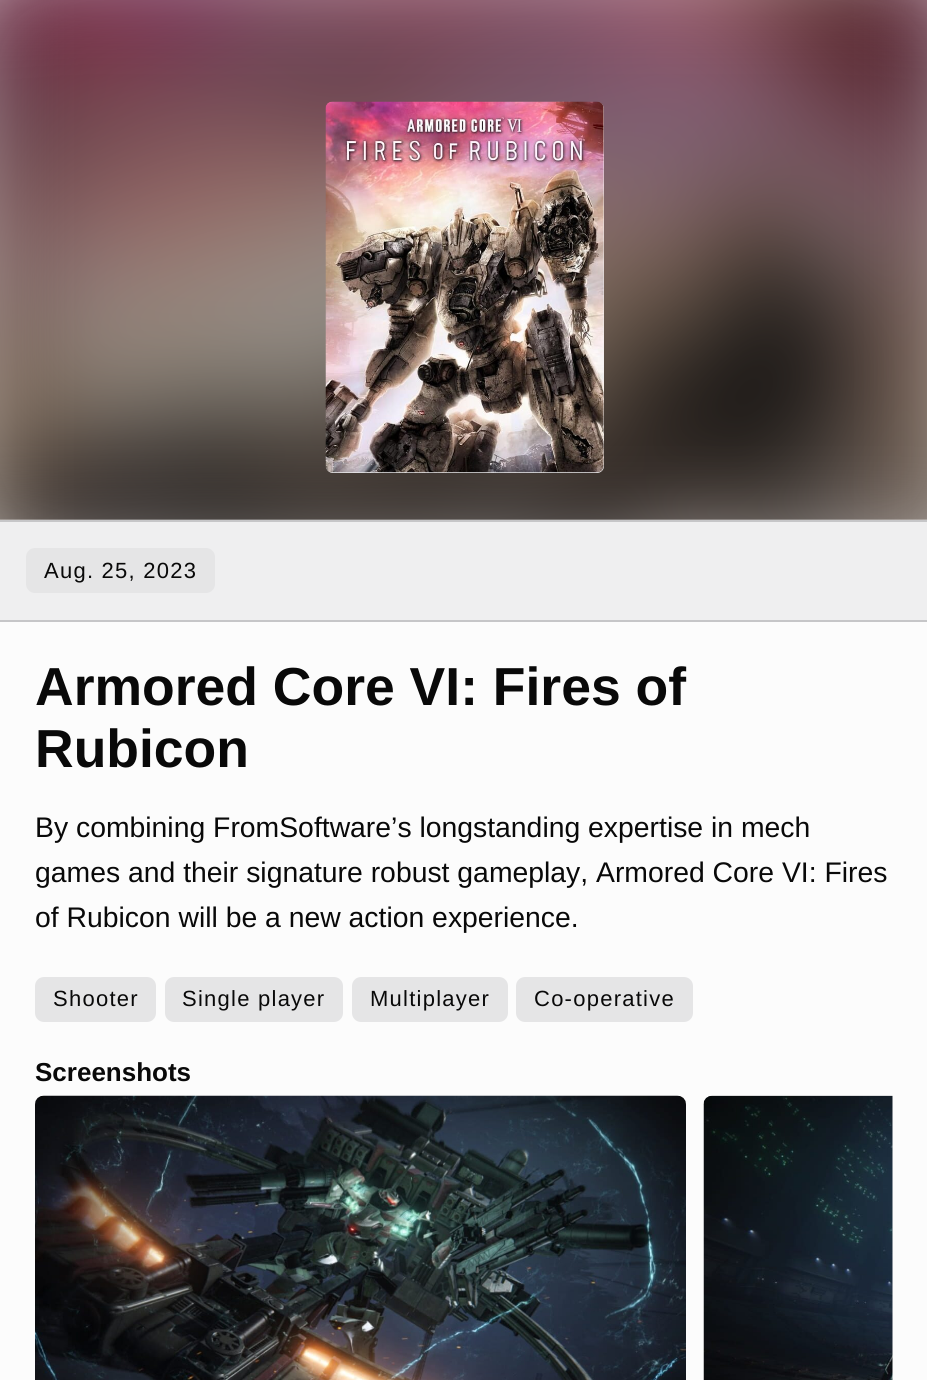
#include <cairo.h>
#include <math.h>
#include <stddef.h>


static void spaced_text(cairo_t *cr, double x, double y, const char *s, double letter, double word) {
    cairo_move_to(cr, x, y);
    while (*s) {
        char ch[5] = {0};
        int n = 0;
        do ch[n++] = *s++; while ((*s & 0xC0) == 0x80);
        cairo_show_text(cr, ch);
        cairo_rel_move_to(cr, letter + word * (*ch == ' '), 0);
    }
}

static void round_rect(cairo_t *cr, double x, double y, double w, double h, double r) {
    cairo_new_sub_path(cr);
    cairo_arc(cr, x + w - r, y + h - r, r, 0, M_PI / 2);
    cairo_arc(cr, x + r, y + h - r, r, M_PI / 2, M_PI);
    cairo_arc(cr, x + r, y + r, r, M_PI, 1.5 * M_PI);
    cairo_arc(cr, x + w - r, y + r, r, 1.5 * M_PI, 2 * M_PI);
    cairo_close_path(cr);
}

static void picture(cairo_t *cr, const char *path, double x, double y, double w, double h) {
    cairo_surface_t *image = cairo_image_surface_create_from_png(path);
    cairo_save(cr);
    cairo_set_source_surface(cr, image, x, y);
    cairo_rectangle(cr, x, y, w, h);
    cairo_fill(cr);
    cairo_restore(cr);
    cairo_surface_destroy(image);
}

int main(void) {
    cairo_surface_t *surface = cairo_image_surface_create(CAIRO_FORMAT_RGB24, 927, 1380);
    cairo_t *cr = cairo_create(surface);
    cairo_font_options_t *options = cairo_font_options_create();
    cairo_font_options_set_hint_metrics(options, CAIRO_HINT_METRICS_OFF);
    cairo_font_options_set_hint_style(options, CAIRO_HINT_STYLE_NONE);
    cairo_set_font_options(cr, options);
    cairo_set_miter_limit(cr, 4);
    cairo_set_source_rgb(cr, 0.988, 0.988, 0.988);
    cairo_paint(cr);
    cairo_set_source_rgb(cr, 0.776, 0.776, 0.784);
    cairo_rectangle(cr, 0, 520, 927, 2);
    cairo_fill(cr);
    picture(cr, "img1.png", 0, 0, 927, 520);
    cairo_set_source_rgb(cr, 0.937, 0.937, 0.941);
    round_rect(cr, 326, 102, 278, 371, 7);
    cairo_fill(cr);
    picture(cr, "img2.png", 325, 101, 279, 372);
    cairo_rectangle(cr, 0, 522, 927, 98);
    cairo_fill(cr);
    cairo_set_source_rgb(cr, 0.776, 0.776, 0.784);
    cairo_rectangle(cr, 0, 620, 927, 2);
    cairo_fill(cr);
    cairo_set_source_rgb(cr, 0.898, 0.898, 0.902);
    round_rect(cr, 26, 548, 189, 45, 9);
    cairo_fill(cr);
    cairo_select_font_face(cr, "Liberation Sans", CAIRO_FONT_SLANT_NORMAL, CAIRO_FONT_WEIGHT_NORMAL);
    cairo_set_font_size(cr, 22);
    cairo_set_source_rgb(cr, 0.039, 0.039, 0.039);
    spaced_text(cr, 44, 578, "Aug. 25, 2023", 1.25, 0);
    cairo_select_font_face(cr, "Liberation Sans", CAIRO_FONT_SLANT_NORMAL, CAIRO_FONT_WEIGHT_BOLD);
    cairo_set_font_size(cr, 53.5);
    cairo_move_to(cr, 35, 705);
    cairo_show_text(cr, "Armored Core VI: Fires of");
    cairo_move_to(cr, 35, 767);
    cairo_show_text(cr, "Rubicon");
    cairo_select_font_face(cr, "Liberation Sans", CAIRO_FONT_SLANT_NORMAL, CAIRO_FONT_WEIGHT_NORMAL);
    cairo_set_font_size(cr, 28.35);
    cairo_move_to(cr, 35, 837);
    cairo_show_text(cr, "By combining FromSoftware’s longstanding expertise in mech");
    cairo_move_to(cr, 35, 882);
    cairo_show_text(cr, "games and their signature robust gameplay, Armored Core VI: Fires");
    cairo_move_to(cr, 35, 927);
    cairo_show_text(cr, "of Rubicon will be a new action experience.");
    cairo_set_source_rgb(cr, 0.898, 0.898, 0.902);
    round_rect(cr, 35, 977, 121, 45, 9);
    cairo_fill(cr);
    cairo_set_font_size(cr, 22);
    cairo_set_source_rgb(cr, 0.039, 0.039, 0.039);
    spaced_text(cr, 53, 1006, "Shooter", 1.25, 0);
    cairo_set_source_rgb(cr, 0.898, 0.898, 0.902);
    round_rect(cr, 165, 977, 178, 45, 9);
    cairo_fill(cr);
    cairo_set_source_rgb(cr, 0.039, 0.039, 0.039);
    spaced_text(cr, 182, 1006, "Single player", 1.25, 0);
    cairo_set_source_rgb(cr, 0.898, 0.898, 0.902);
    round_rect(cr, 352, 977, 156, 45, 9);
    cairo_fill(cr);
    cairo_set_source_rgb(cr, 0.039, 0.039, 0.039);
    spaced_text(cr, 370, 1006, "Multiplayer", 1.25, 0);
    cairo_set_source_rgb(cr, 0.898, 0.898, 0.902);
    round_rect(cr, 516, 977, 177, 45, 9);
    cairo_fill(cr);
    cairo_set_source_rgb(cr, 0.039, 0.039, 0.039);
    spaced_text(cr, 534, 1006, "Co-operative", 1.25, 0);
    cairo_select_font_face(cr, "Liberation Sans", CAIRO_FONT_SLANT_NORMAL, CAIRO_FONT_WEIGHT_BOLD);
    cairo_set_font_size(cr, 26);
    cairo_move_to(cr, 35, 1081);
    cairo_show_text(cr, "Screenshots");
    picture(cr, "img3.png", 35, 1095, 651, 285);
    picture(cr, "img4.png", 703, 1095, 190, 285);
    cairo_surface_write_to_png(surface, "page.png");
    cairo_font_options_destroy(options);
    cairo_destroy(cr);
    cairo_surface_destroy(surface);
    return 0;
}
